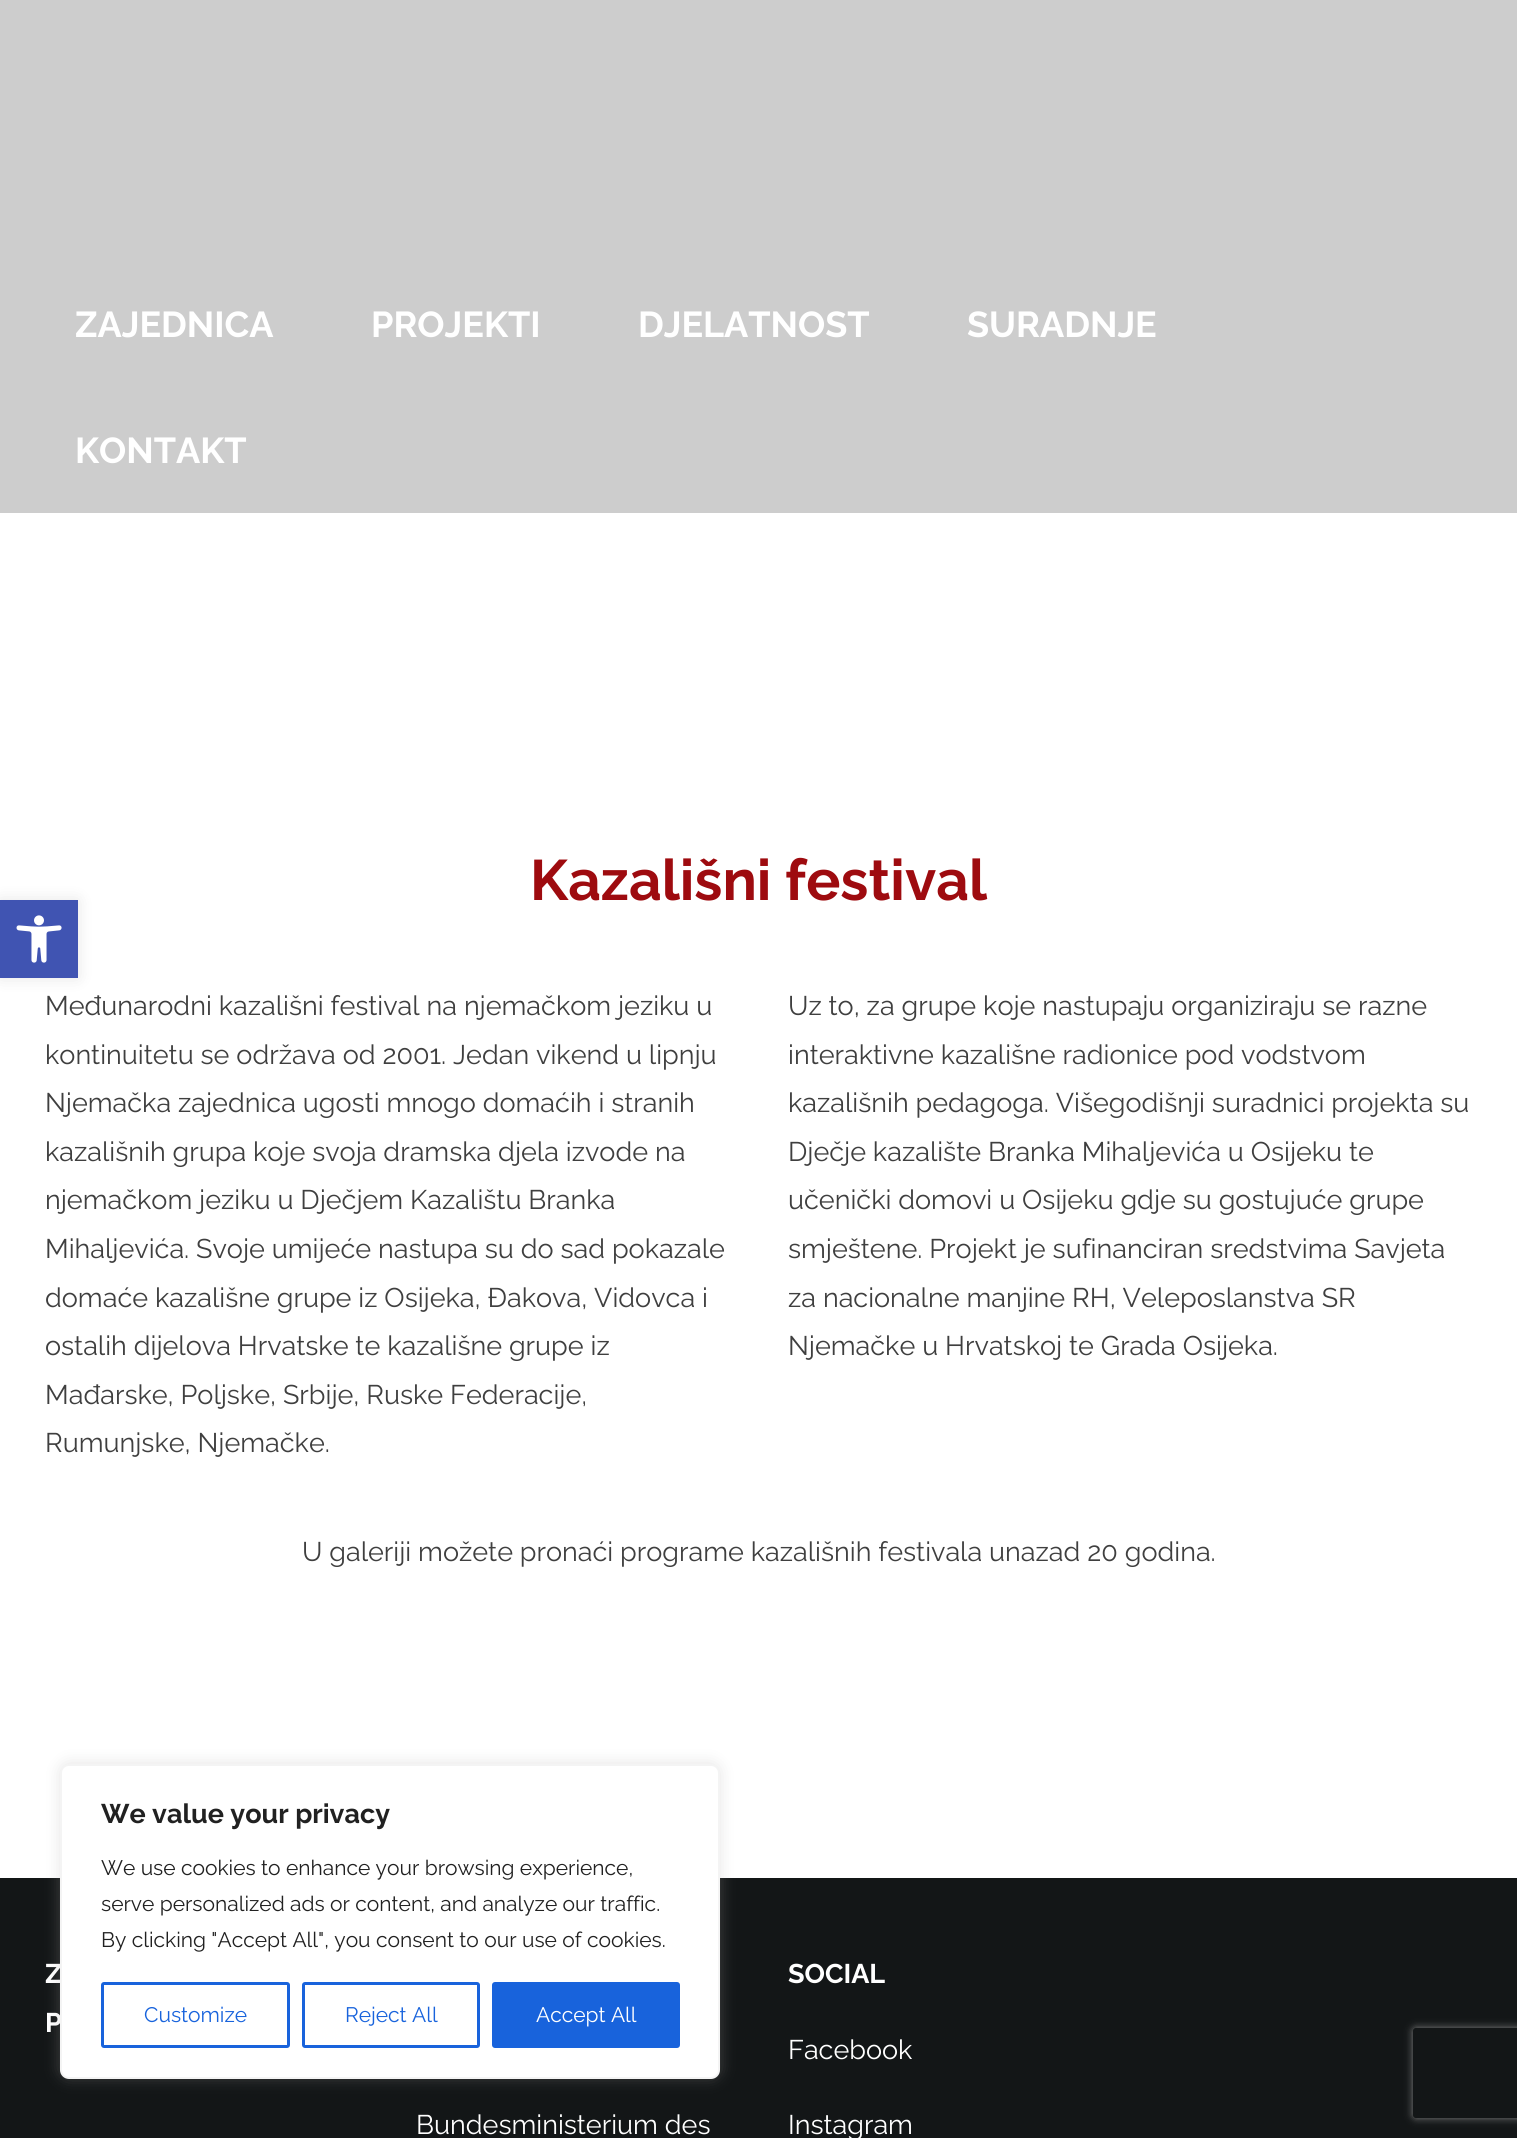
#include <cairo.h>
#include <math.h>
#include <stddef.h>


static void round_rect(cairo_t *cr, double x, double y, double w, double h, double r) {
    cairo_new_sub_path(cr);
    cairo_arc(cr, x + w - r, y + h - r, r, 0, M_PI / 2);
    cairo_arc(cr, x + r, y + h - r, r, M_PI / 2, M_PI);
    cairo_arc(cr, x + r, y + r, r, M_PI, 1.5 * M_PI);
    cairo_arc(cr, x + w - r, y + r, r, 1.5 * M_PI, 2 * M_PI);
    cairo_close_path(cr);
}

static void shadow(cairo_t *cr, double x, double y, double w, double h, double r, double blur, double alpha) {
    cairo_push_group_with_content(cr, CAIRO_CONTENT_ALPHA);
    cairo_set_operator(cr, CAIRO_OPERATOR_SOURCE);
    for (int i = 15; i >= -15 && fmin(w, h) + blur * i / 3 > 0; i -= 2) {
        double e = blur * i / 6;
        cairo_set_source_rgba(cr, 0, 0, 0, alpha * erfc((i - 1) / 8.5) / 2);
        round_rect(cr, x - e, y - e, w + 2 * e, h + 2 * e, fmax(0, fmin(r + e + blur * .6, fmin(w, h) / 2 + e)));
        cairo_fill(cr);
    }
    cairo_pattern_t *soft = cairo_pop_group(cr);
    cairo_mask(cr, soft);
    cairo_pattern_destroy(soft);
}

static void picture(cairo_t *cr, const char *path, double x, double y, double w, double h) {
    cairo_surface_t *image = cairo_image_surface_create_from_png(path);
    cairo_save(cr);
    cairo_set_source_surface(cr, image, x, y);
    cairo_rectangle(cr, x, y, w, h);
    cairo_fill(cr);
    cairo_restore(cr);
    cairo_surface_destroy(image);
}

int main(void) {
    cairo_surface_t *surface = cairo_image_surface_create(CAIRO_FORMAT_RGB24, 1517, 2138);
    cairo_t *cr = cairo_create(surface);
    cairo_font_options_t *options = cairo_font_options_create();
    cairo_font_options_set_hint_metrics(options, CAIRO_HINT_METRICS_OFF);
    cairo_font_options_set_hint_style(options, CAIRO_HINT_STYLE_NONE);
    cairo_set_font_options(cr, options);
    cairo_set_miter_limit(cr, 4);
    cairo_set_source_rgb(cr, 1, 1, 1);
    cairo_paint(cr);
    cairo_set_source_rgb(cr, 0.804, 0.804, 0.804);
    cairo_rectangle(cr, 0, 0, 1517, 513);
    cairo_fill(cr);
    cairo_select_font_face(cr, "Raleway", CAIRO_FONT_SLANT_NORMAL, CAIRO_FONT_WEIGHT_BOLD);
    cairo_set_font_size(cr, 36);
    cairo_set_source_rgb(cr, 1, 1, 1);
    cairo_move_to(cr, 75, 337);
    cairo_show_text(cr, "ZAJEDNICA");
    cairo_move_to(cr, 371, 337);
    cairo_show_text(cr, "PROJEKTI");
    cairo_move_to(cr, 638, 337);
    cairo_show_text(cr, "DJELATNOST");
    cairo_move_to(cr, 967, 337);
    cairo_show_text(cr, "SURADNJE");
    cairo_move_to(cr, 75, 463);
    cairo_show_text(cr, "KONTAKT");
    cairo_set_font_size(cr, 57);
    cairo_set_source_rgb(cr, 0.62, 0.043, 0.059);
    cairo_move_to(cr, 530, 900);
    cairo_show_text(cr, "Kazališni festival");
    cairo_select_font_face(cr, "Raleway", CAIRO_FONT_SLANT_NORMAL, CAIRO_FONT_WEIGHT_NORMAL);
    cairo_set_font_size(cr, 27);
    cairo_set_source_rgb(cr, 0.247, 0.247, 0.247);
    cairo_move_to(cr, 45, 1015);
    cairo_show_text(cr, "Međunarodni kazališni festival na njemačkom jeziku u");
    cairo_move_to(cr, 45, 1064);
    cairo_show_text(cr, "kontinuitetu se održava od 2001. Jedan vikend u lipnju");
    cairo_move_to(cr, 45, 1112);
    cairo_show_text(cr, "Njemačka zajednica ugosti mnogo domaćih i stranih");
    cairo_move_to(cr, 45, 1161);
    cairo_show_text(cr, "kazališnih grupa koje svoja dramska djela izvode na");
    cairo_move_to(cr, 45, 1209);
    cairo_show_text(cr, "njemačkom jeziku u Dječjem Kazalištu Branka");
    cairo_move_to(cr, 45, 1258);
    cairo_show_text(cr, "Mihaljevića. Svoje umijeće nastupa su do sad pokazale");
    cairo_move_to(cr, 45, 1307);
    cairo_show_text(cr, "domaće kazališne grupe iz Osijeka, Đakova, Vidovca i");
    cairo_move_to(cr, 45, 1355);
    cairo_show_text(cr, "ostalih dijelova Hrvatske te kazališne grupe iz");
    cairo_move_to(cr, 45, 1404);
    cairo_show_text(cr, "Mađarske, Poljske, Srbije, Ruske Federacije,");
    cairo_move_to(cr, 45, 1452);
    cairo_show_text(cr, "Rumunjske, Njemačke.");
    cairo_move_to(cr, 788, 1015);
    cairo_show_text(cr, "Uz to, za grupe koje nastupaju organiziraju se razne");
    cairo_move_to(cr, 788, 1064);
    cairo_show_text(cr, "interaktivne kazališne radionice pod vodstvom");
    cairo_move_to(cr, 788, 1112);
    cairo_show_text(cr, "kazališnih pedagoga. Višegodišnji suradnici projekta su");
    cairo_move_to(cr, 788, 1161);
    cairo_show_text(cr, "Dječje kazalište Branka Mihaljevića u Osijeku te");
    cairo_move_to(cr, 788, 1209);
    cairo_show_text(cr, "učenički domovi u Osijeku gdje su gostujuće grupe");
    cairo_move_to(cr, 788, 1258);
    cairo_show_text(cr, "smještene. Projekt je sufinanciran sredstvima Savjeta");
    cairo_move_to(cr, 788, 1307);
    cairo_show_text(cr, "za nacionalne manjine RH, Veleposlanstva SR");
    cairo_move_to(cr, 788, 1355);
    cairo_show_text(cr, "Njemačke u Hrvatskoj te Grada Osijeka.");
    cairo_move_to(cr, 302, 1561);
    cairo_show_text(cr, "U galeriji možete pronaći programe kazališnih festivala unazad 20 godina.");
    cairo_set_source_rgb(cr, 0.078, 0.086, 0.09);
    cairo_rectangle(cr, 0, 1878, 1517, 260);
    cairo_fill(cr);
    cairo_select_font_face(cr, "Raleway", CAIRO_FONT_SLANT_NORMAL, CAIRO_FONT_WEIGHT_BOLD);
    cairo_set_source_rgb(cr, 1, 1, 1);
    cairo_move_to(cr, 45, 1983);
    cairo_show_text(cr, "Z");
    cairo_move_to(cr, 45, 2032);
    cairo_show_text(cr, "P");
    cairo_select_font_face(cr, "Raleway", CAIRO_FONT_SLANT_NORMAL, CAIRO_FONT_WEIGHT_NORMAL);
    cairo_move_to(cr, 416, 2134);
    cairo_show_text(cr, "Bundesministerium des");
    cairo_select_font_face(cr, "Raleway", CAIRO_FONT_SLANT_NORMAL, CAIRO_FONT_WEIGHT_BOLD);
    cairo_move_to(cr, 788, 1983);
    cairo_show_text(cr, "SOCIAL");
    cairo_select_font_face(cr, "Raleway", CAIRO_FONT_SLANT_NORMAL, CAIRO_FONT_WEIGHT_NORMAL);
    cairo_move_to(cr, 788, 2059);
    cairo_show_text(cr, "Facebook");
    cairo_move_to(cr, 788, 2134);
    cairo_show_text(cr, "Instagram");
    cairo_set_source_rgb(cr, 0, 0, 0);
    shadow(cr, 0, 900, 78, 78, 0, 7.5, 0.1);
    cairo_set_source_rgb(cr, 0.251, 0.329, 0.698);
    cairo_rectangle(cr, 0, 900, 78, 78);
    cairo_fill(cr);
    picture(cr, "img1.png", 16, 915, 46, 48);
    cairo_set_source_rgb(cr, 0.675, 0.671, 0.671);
    shadow(cr, 60, 1763, 660, 315, 9, 7.5, 0.3);
    cairo_set_source_rgb(cr, 1, 1, 1);
    round_rect(cr, 61, 1765, 658, 313, 8);
    cairo_fill_preserve(cr);
    cairo_set_source_rgb(cr, 0.957, 0.957, 0.957);
    cairo_stroke(cr);
    cairo_select_font_face(cr, "Raleway", CAIRO_FONT_SLANT_NORMAL, CAIRO_FONT_WEIGHT_BOLD);
    cairo_set_source_rgb(cr, 0.129, 0.129, 0.129);
    cairo_move_to(cr, 101, 1823);
    cairo_show_text(cr, "We value your privacy");
    cairo_select_font_face(cr, "Raleway", CAIRO_FONT_SLANT_NORMAL, CAIRO_FONT_WEIGHT_NORMAL);
    cairo_set_font_size(cr, 21);
    cairo_move_to(cr, 101, 1875);
    cairo_show_text(cr, "We use cookies to enhance your browsing experience,");
    cairo_move_to(cr, 101, 1911);
    cairo_show_text(cr, "serve personalized ads or content, and analyze our traffic.");
    cairo_move_to(cr, 101, 1947);
    cairo_show_text(cr, "By clicking \"Accept All\", you consent to our use of cookies.");
    round_rect(cr, 102.5, 1983.5, 186, 63, 1.5);
    cairo_set_source_rgb(cr, 0.094, 0.388, 0.863);
    cairo_set_line_width(cr, 3);
    cairo_stroke(cr);
    cairo_move_to(cr, 144, 2022);
    cairo_show_text(cr, "Customize");
    round_rect(cr, 303.5, 1983.5, 175, 63, 1.5);
    cairo_stroke(cr);
    cairo_move_to(cr, 345, 2022);
    cairo_show_text(cr, "Reject All");
    round_rect(cr, 493.5, 1983.5, 185, 63, 1.5);
    cairo_fill_preserve(cr);
    cairo_stroke(cr);
    cairo_set_source_rgb(cr, 1, 1, 1);
    cairo_move_to(cr, 536, 2022);
    cairo_show_text(cr, "Accept All");
    cairo_save(cr);
    cairo_set_fill_rule(cr, CAIRO_FILL_RULE_EVEN_ODD);
    cairo_new_path(cr);
    cairo_move_to(cr, 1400, 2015);
    cairo_line_to(cr, 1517, 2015);
    cairo_line_to(cr, 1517, 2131);
    cairo_line_to(cr, 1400, 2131);
    cairo_close_path(cr);
    cairo_move_to(cr, 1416, 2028);
    cairo_line_to(cr, 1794, 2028);
    cairo_curve_to(cr, 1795.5, 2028, 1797, 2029.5, 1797, 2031);
    cairo_line_to(cr, 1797, 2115);
    cairo_curve_to(cr, 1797, 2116.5, 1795.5, 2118, 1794, 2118);
    cairo_line_to(cr, 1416, 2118);
    cairo_curve_to(cr, 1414.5, 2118, 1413, 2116.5, 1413, 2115);
    cairo_line_to(cr, 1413, 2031);
    cairo_curve_to(cr, 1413, 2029.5, 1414.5, 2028, 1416, 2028);
    cairo_close_path(cr);
    cairo_clip(cr);
    cairo_set_source_rgb(cr, 0.502, 0.502, 0.502);
    shadow(cr, 1413, 2028, 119, 90, 3, 4, 1);
    cairo_restore(cr);
    cairo_surface_write_to_png(surface, "page.png");
    cairo_font_options_destroy(options);
    cairo_destroy(cr);
    cairo_surface_destroy(surface);
    return 0;
}
